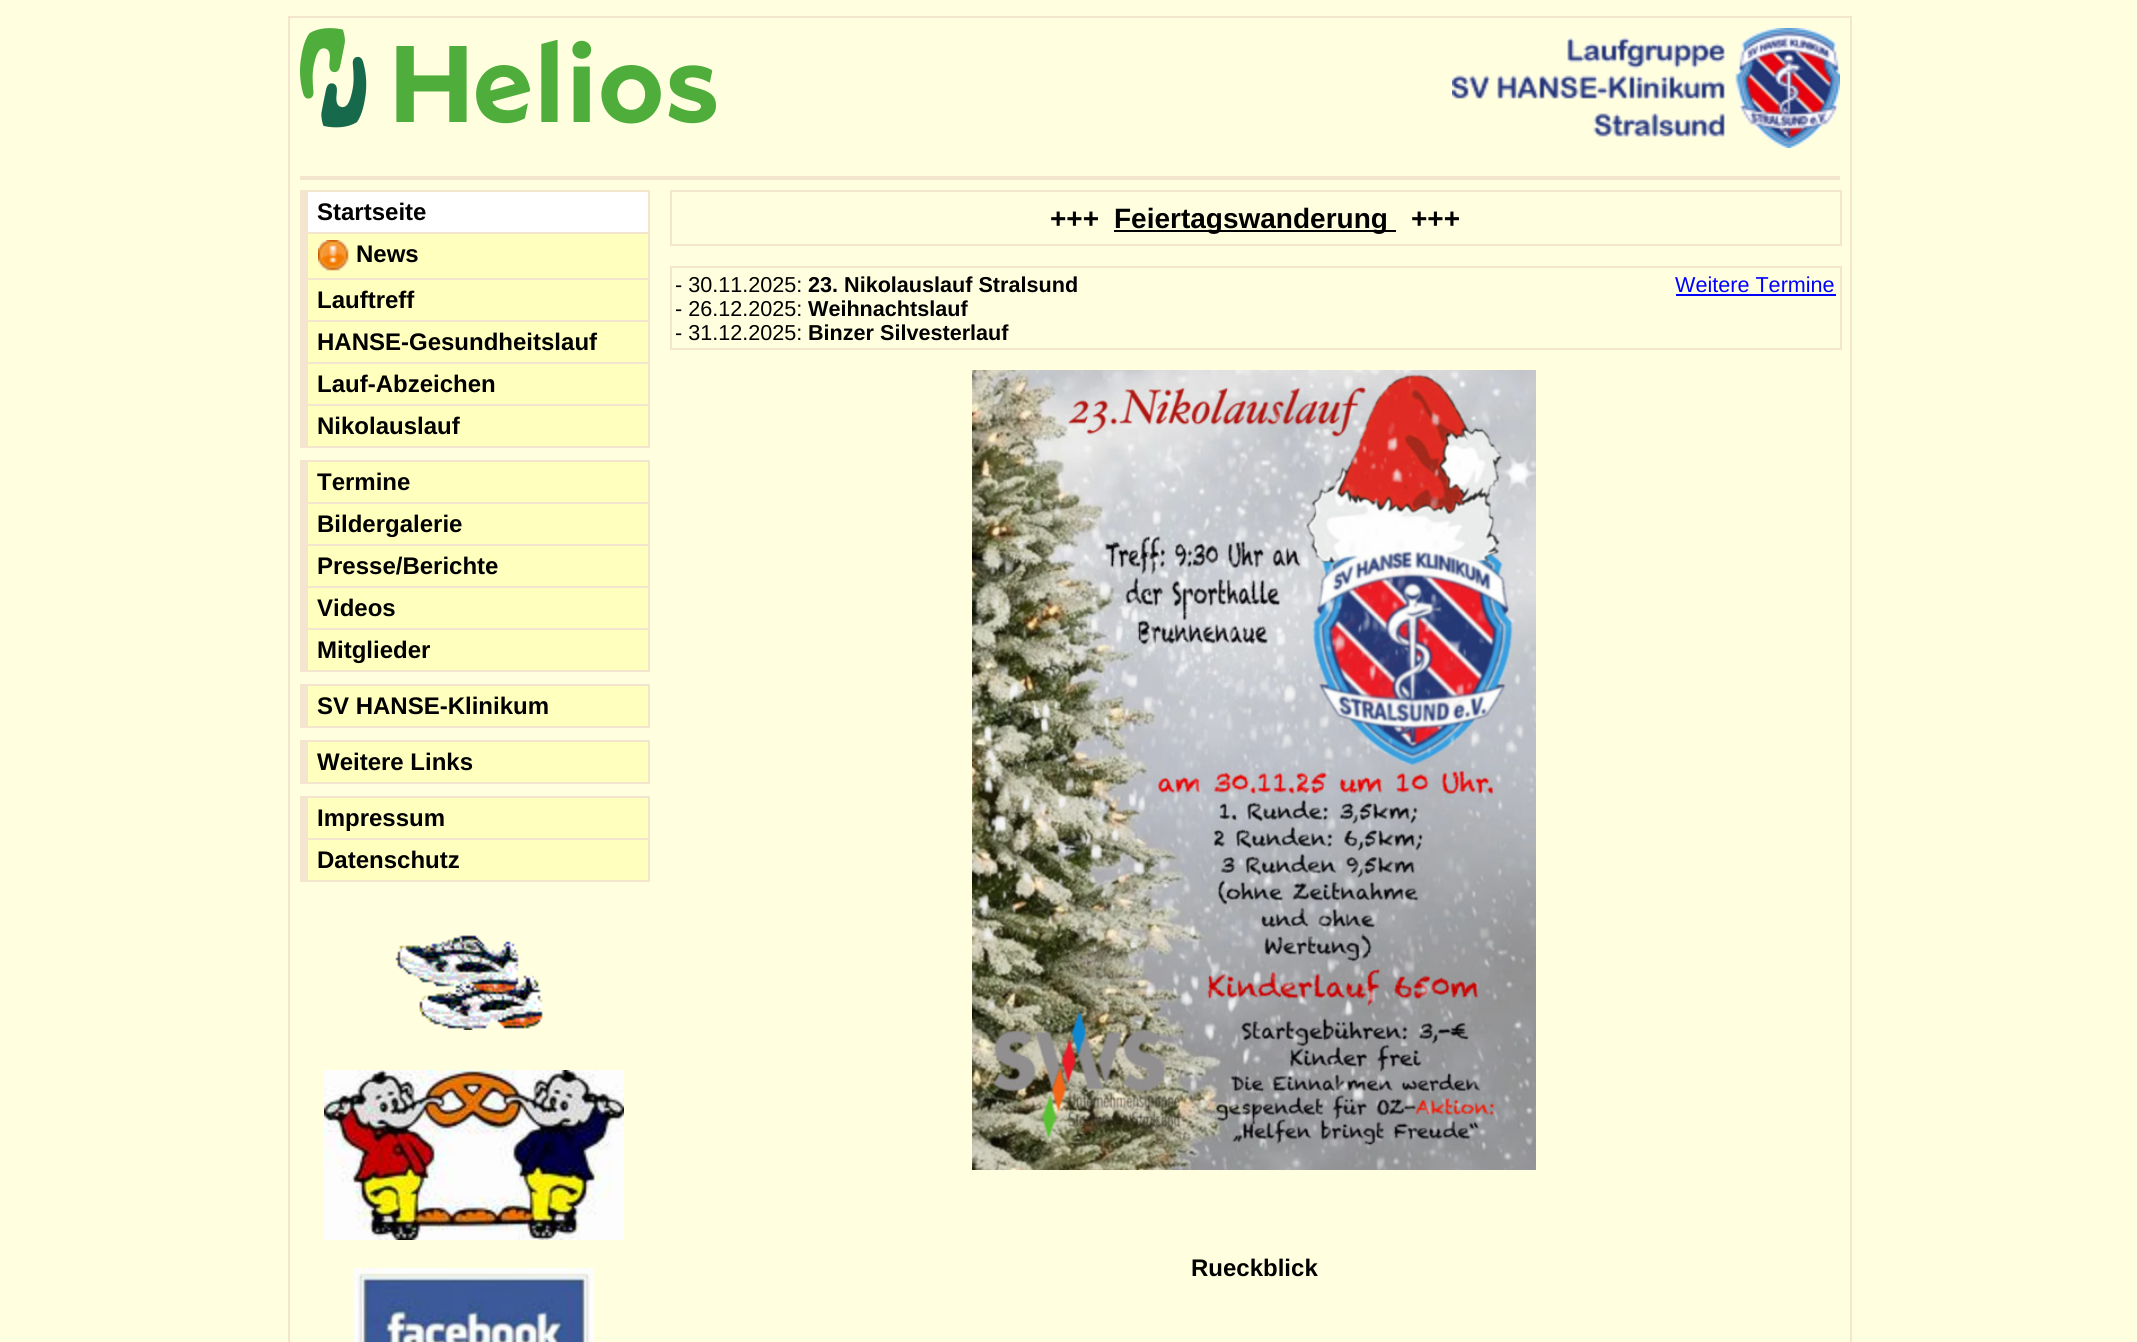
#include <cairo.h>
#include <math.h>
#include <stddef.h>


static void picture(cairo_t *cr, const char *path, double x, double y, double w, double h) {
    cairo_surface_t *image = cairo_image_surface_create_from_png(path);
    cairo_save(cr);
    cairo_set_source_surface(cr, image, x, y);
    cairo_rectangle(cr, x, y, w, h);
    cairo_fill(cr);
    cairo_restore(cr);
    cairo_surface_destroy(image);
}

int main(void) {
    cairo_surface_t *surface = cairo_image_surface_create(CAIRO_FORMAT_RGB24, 2137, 1342);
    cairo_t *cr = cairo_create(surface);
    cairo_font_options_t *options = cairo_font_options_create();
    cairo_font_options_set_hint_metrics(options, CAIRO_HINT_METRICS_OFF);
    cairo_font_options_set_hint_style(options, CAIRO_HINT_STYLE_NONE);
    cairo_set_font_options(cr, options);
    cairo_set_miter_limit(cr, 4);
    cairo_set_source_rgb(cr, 1, 1, 0.878);
    cairo_paint(cr);
    cairo_rectangle(cr, 289, 17, 1562, 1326);
    cairo_set_source_rgb(cr, 0.953, 0.898, 0.808);
    cairo_stroke(cr);
    picture(cr, "img1.png", 300, 28, 416, 100);
    picture(cr, "img2.png", 1452, 28, 388, 120);
    cairo_rectangle(cr, 300, 176, 1540, 4);
    cairo_fill(cr);
    cairo_set_source_rgb(cr, 1, 1, 1);
    cairo_rectangle(cr, 308, 192, 340, 40);
    cairo_fill(cr);
    cairo_set_source_rgb(cr, 0.953, 0.898, 0.808);
    cairo_rectangle(cr, 300, 190, 350, 2);
    cairo_fill(cr);
    cairo_rectangle(cr, 648, 190, 2, 42);
    cairo_fill(cr);
    cairo_rectangle(cr, 300, 190, 8, 42);
    cairo_fill(cr);
    cairo_select_font_face(cr, "Liberation Sans", CAIRO_FONT_SLANT_NORMAL, CAIRO_FONT_WEIGHT_BOLD);
    cairo_set_font_size(cr, 24);
    cairo_set_source_rgb(cr, 0, 0, 0);
    cairo_move_to(cr, 317, 220);
    cairo_show_text(cr, "Startseite");
    cairo_set_source_rgb(cr, 1, 1, 0.745);
    cairo_rectangle(cr, 308, 234, 340, 44);
    cairo_fill(cr);
    cairo_set_source_rgb(cr, 0.953, 0.898, 0.808);
    cairo_rectangle(cr, 300, 232, 350, 2);
    cairo_fill(cr);
    cairo_rectangle(cr, 648, 232, 2, 46);
    cairo_fill(cr);
    cairo_rectangle(cr, 300, 232, 8, 46);
    cairo_fill(cr);
    picture(cr, "img3.png", 318, 240, 31, 31);
    cairo_set_source_rgb(cr, 0, 0, 0);
    cairo_move_to(cr, 356, 262);
    cairo_show_text(cr, "News");
    cairo_set_source_rgb(cr, 1, 1, 0.745);
    cairo_rectangle(cr, 308, 280, 340, 40);
    cairo_fill(cr);
    cairo_set_source_rgb(cr, 0.953, 0.898, 0.808);
    cairo_rectangle(cr, 300, 278, 350, 2);
    cairo_fill(cr);
    cairo_rectangle(cr, 648, 278, 2, 42);
    cairo_fill(cr);
    cairo_rectangle(cr, 300, 278, 8, 42);
    cairo_fill(cr);
    cairo_set_source_rgb(cr, 0, 0, 0);
    cairo_move_to(cr, 317, 308);
    cairo_show_text(cr, "Lauftreff");
    cairo_set_source_rgb(cr, 1, 1, 0.745);
    cairo_rectangle(cr, 308, 322, 340, 40);
    cairo_fill(cr);
    cairo_set_source_rgb(cr, 0.953, 0.898, 0.808);
    cairo_rectangle(cr, 300, 320, 350, 2);
    cairo_fill(cr);
    cairo_rectangle(cr, 648, 320, 2, 42);
    cairo_fill(cr);
    cairo_rectangle(cr, 300, 320, 8, 42);
    cairo_fill(cr);
    cairo_set_source_rgb(cr, 0, 0, 0);
    cairo_move_to(cr, 317, 350);
    cairo_show_text(cr, "HANSE-Gesundheitslauf");
    cairo_set_source_rgb(cr, 1, 1, 0.745);
    cairo_rectangle(cr, 308, 364, 340, 40);
    cairo_fill(cr);
    cairo_set_source_rgb(cr, 0.953, 0.898, 0.808);
    cairo_rectangle(cr, 300, 362, 350, 2);
    cairo_fill(cr);
    cairo_rectangle(cr, 648, 362, 2, 42);
    cairo_fill(cr);
    cairo_rectangle(cr, 300, 362, 8, 42);
    cairo_fill(cr);
    cairo_set_source_rgb(cr, 0, 0, 0);
    cairo_move_to(cr, 317, 392);
    cairo_show_text(cr, "Lauf-Abzeichen");
    cairo_set_source_rgb(cr, 1, 1, 0.745);
    cairo_rectangle(cr, 308, 406, 340, 40);
    cairo_fill(cr);
    cairo_set_source_rgb(cr, 0.953, 0.898, 0.808);
    cairo_rectangle(cr, 300, 404, 350, 2);
    cairo_fill(cr);
    cairo_rectangle(cr, 648, 404, 2, 44);
    cairo_fill(cr);
    cairo_rectangle(cr, 300, 446, 350, 2);
    cairo_fill(cr);
    cairo_rectangle(cr, 300, 404, 8, 44);
    cairo_fill(cr);
    cairo_set_source_rgb(cr, 0, 0, 0);
    cairo_move_to(cr, 317, 434);
    cairo_show_text(cr, "Nikolauslauf");
    cairo_set_source_rgb(cr, 1, 1, 0.745);
    cairo_rectangle(cr, 308, 462, 340, 40);
    cairo_fill(cr);
    cairo_set_source_rgb(cr, 0.953, 0.898, 0.808);
    cairo_rectangle(cr, 300, 460, 350, 2);
    cairo_fill(cr);
    cairo_rectangle(cr, 648, 460, 2, 42);
    cairo_fill(cr);
    cairo_rectangle(cr, 300, 460, 8, 42);
    cairo_fill(cr);
    cairo_set_source_rgb(cr, 0, 0, 0);
    cairo_move_to(cr, 317, 490);
    cairo_show_text(cr, "Termine");
    cairo_set_source_rgb(cr, 1, 1, 0.745);
    cairo_rectangle(cr, 308, 504, 340, 40);
    cairo_fill(cr);
    cairo_set_source_rgb(cr, 0.953, 0.898, 0.808);
    cairo_rectangle(cr, 300, 502, 350, 2);
    cairo_fill(cr);
    cairo_rectangle(cr, 648, 502, 2, 42);
    cairo_fill(cr);
    cairo_rectangle(cr, 300, 502, 8, 42);
    cairo_fill(cr);
    cairo_set_source_rgb(cr, 0, 0, 0);
    cairo_move_to(cr, 317, 532);
    cairo_show_text(cr, "Bildergalerie");
    cairo_set_source_rgb(cr, 1, 1, 0.745);
    cairo_rectangle(cr, 308, 546, 340, 40);
    cairo_fill(cr);
    cairo_set_source_rgb(cr, 0.953, 0.898, 0.808);
    cairo_rectangle(cr, 300, 544, 350, 2);
    cairo_fill(cr);
    cairo_rectangle(cr, 648, 544, 2, 42);
    cairo_fill(cr);
    cairo_rectangle(cr, 300, 544, 8, 42);
    cairo_fill(cr);
    cairo_set_source_rgb(cr, 0, 0, 0);
    cairo_move_to(cr, 317, 574);
    cairo_show_text(cr, "Presse/Berichte");
    cairo_set_source_rgb(cr, 1, 1, 0.745);
    cairo_rectangle(cr, 308, 588, 340, 40);
    cairo_fill(cr);
    cairo_set_source_rgb(cr, 0.953, 0.898, 0.808);
    cairo_rectangle(cr, 300, 586, 350, 2);
    cairo_fill(cr);
    cairo_rectangle(cr, 648, 586, 2, 42);
    cairo_fill(cr);
    cairo_rectangle(cr, 300, 586, 8, 42);
    cairo_fill(cr);
    cairo_set_source_rgb(cr, 0, 0, 0);
    cairo_move_to(cr, 317, 616);
    cairo_show_text(cr, "Videos");
    cairo_set_source_rgb(cr, 1, 1, 0.745);
    cairo_rectangle(cr, 308, 630, 340, 40);
    cairo_fill(cr);
    cairo_set_source_rgb(cr, 0.953, 0.898, 0.808);
    cairo_rectangle(cr, 300, 628, 350, 2);
    cairo_fill(cr);
    cairo_rectangle(cr, 648, 628, 2, 44);
    cairo_fill(cr);
    cairo_rectangle(cr, 300, 670, 350, 2);
    cairo_fill(cr);
    cairo_rectangle(cr, 300, 628, 8, 44);
    cairo_fill(cr);
    cairo_set_source_rgb(cr, 0, 0, 0);
    cairo_move_to(cr, 317, 658);
    cairo_show_text(cr, "Mitglieder");
    cairo_set_source_rgb(cr, 1, 1, 0.745);
    cairo_rectangle(cr, 308, 686, 340, 40);
    cairo_fill(cr);
    cairo_set_source_rgb(cr, 0.953, 0.898, 0.808);
    cairo_rectangle(cr, 300, 684, 350, 2);
    cairo_fill(cr);
    cairo_rectangle(cr, 648, 684, 2, 44);
    cairo_fill(cr);
    cairo_rectangle(cr, 300, 726, 350, 2);
    cairo_fill(cr);
    cairo_rectangle(cr, 300, 684, 8, 44);
    cairo_fill(cr);
    cairo_set_source_rgb(cr, 0, 0, 0);
    cairo_move_to(cr, 317, 714);
    cairo_show_text(cr, "SV HANSE-Klinikum");
    cairo_set_source_rgb(cr, 1, 1, 0.745);
    cairo_rectangle(cr, 308, 742, 340, 40);
    cairo_fill(cr);
    cairo_set_source_rgb(cr, 0.953, 0.898, 0.808);
    cairo_rectangle(cr, 300, 740, 350, 2);
    cairo_fill(cr);
    cairo_rectangle(cr, 648, 740, 2, 44);
    cairo_fill(cr);
    cairo_rectangle(cr, 300, 782, 350, 2);
    cairo_fill(cr);
    cairo_rectangle(cr, 300, 740, 8, 44);
    cairo_fill(cr);
    cairo_set_source_rgb(cr, 0, 0, 0);
    cairo_move_to(cr, 317, 770);
    cairo_show_text(cr, "Weitere Links");
    cairo_set_source_rgb(cr, 1, 1, 0.745);
    cairo_rectangle(cr, 308, 798, 340, 40);
    cairo_fill(cr);
    cairo_set_source_rgb(cr, 0.953, 0.898, 0.808);
    cairo_rectangle(cr, 300, 796, 350, 2);
    cairo_fill(cr);
    cairo_rectangle(cr, 648, 796, 2, 42);
    cairo_fill(cr);
    cairo_rectangle(cr, 300, 796, 8, 42);
    cairo_fill(cr);
    cairo_set_source_rgb(cr, 0, 0, 0);
    cairo_move_to(cr, 317, 826);
    cairo_show_text(cr, "Impressum");
    cairo_set_source_rgb(cr, 1, 1, 0.745);
    cairo_rectangle(cr, 308, 840, 340, 40);
    cairo_fill(cr);
    cairo_set_source_rgb(cr, 0.953, 0.898, 0.808);
    cairo_rectangle(cr, 300, 838, 350, 2);
    cairo_fill(cr);
    cairo_rectangle(cr, 648, 838, 2, 44);
    cairo_fill(cr);
    cairo_rectangle(cr, 300, 880, 350, 2);
    cairo_fill(cr);
    cairo_rectangle(cr, 300, 838, 8, 44);
    cairo_fill(cr);
    cairo_set_source_rgb(cr, 0, 0, 0);
    cairo_move_to(cr, 317, 868);
    cairo_show_text(cr, "Datenschutz");
    picture(cr, "img4.png", 395, 935, 148, 95);
    picture(cr, "img5.png", 324, 1070, 300, 170);
    picture(cr, "img6.png", 354, 1268, 240, 74);
    cairo_rectangle(cr, 671, 191, 1170, 54);
    cairo_set_source_rgb(cr, 0.953, 0.898, 0.808);
    cairo_stroke(cr);
    cairo_set_font_size(cr, 28);
    cairo_set_source_rgb(cr, 0, 0, 0);
    cairo_move_to(cr, 1050, 228);
    cairo_show_text(cr, "+++");
    cairo_rectangle(cr, 1114, 230, 282, 2);
    cairo_fill(cr);
    cairo_move_to(cr, 1114, 228);
    cairo_show_text(cr, "Feiertagswanderung");
    cairo_move_to(cr, 1411, 228);
    cairo_show_text(cr, "+++");
    cairo_rectangle(cr, 671, 267, 1170, 82);
    cairo_set_source_rgb(cr, 0.953, 0.898, 0.808);
    cairo_stroke(cr);
    cairo_select_font_face(cr, "Liberation Sans", CAIRO_FONT_SLANT_NORMAL, CAIRO_FONT_WEIGHT_NORMAL);
    cairo_set_font_size(cr, 21.6);
    cairo_set_source_rgb(cr, 0, 0, 0);
    cairo_move_to(cr, 675, 292);
    cairo_show_text(cr, "- 30.11.2025:");
    cairo_select_font_face(cr, "Liberation Sans", CAIRO_FONT_SLANT_NORMAL, CAIRO_FONT_WEIGHT_BOLD);
    cairo_move_to(cr, 808, 292);
    cairo_show_text(cr, "23. Nikolauslauf Stralsund");
    cairo_select_font_face(cr, "Liberation Sans", CAIRO_FONT_SLANT_NORMAL, CAIRO_FONT_WEIGHT_NORMAL);
    cairo_move_to(cr, 675, 316);
    cairo_show_text(cr, "- 26.12.2025:");
    cairo_select_font_face(cr, "Liberation Sans", CAIRO_FONT_SLANT_NORMAL, CAIRO_FONT_WEIGHT_BOLD);
    cairo_move_to(cr, 808, 316);
    cairo_show_text(cr, "Weihnachtslauf");
    cairo_select_font_face(cr, "Liberation Sans", CAIRO_FONT_SLANT_NORMAL, CAIRO_FONT_WEIGHT_NORMAL);
    cairo_move_to(cr, 675, 340);
    cairo_show_text(cr, "- 31.12.2025:");
    cairo_select_font_face(cr, "Liberation Sans", CAIRO_FONT_SLANT_NORMAL, CAIRO_FONT_WEIGHT_BOLD);
    cairo_move_to(cr, 808, 340);
    cairo_show_text(cr, "Binzer Silvesterlauf");
    cairo_select_font_face(cr, "Liberation Sans", CAIRO_FONT_SLANT_NORMAL, CAIRO_FONT_WEIGHT_NORMAL);
    cairo_set_source_rgb(cr, 0, 0, 1);
    cairo_move_to(cr, 1675, 292);
    cairo_show_text(cr, "Weitere Termine");
    cairo_rectangle(cr, 1676, 294, 160, 2);
    cairo_fill(cr);
    picture(cr, "img7.png", 972, 370, 564, 800);
    cairo_select_font_face(cr, "Liberation Sans", CAIRO_FONT_SLANT_NORMAL, CAIRO_FONT_WEIGHT_BOLD);
    cairo_set_font_size(cr, 24);
    cairo_set_source_rgb(cr, 0, 0, 0);
    cairo_move_to(cr, 1191, 1276);
    cairo_show_text(cr, "Rueckblick");
    cairo_surface_write_to_png(surface, "page.png");
    cairo_font_options_destroy(options);
    cairo_destroy(cr);
    cairo_surface_destroy(surface);
    return 0;
}
